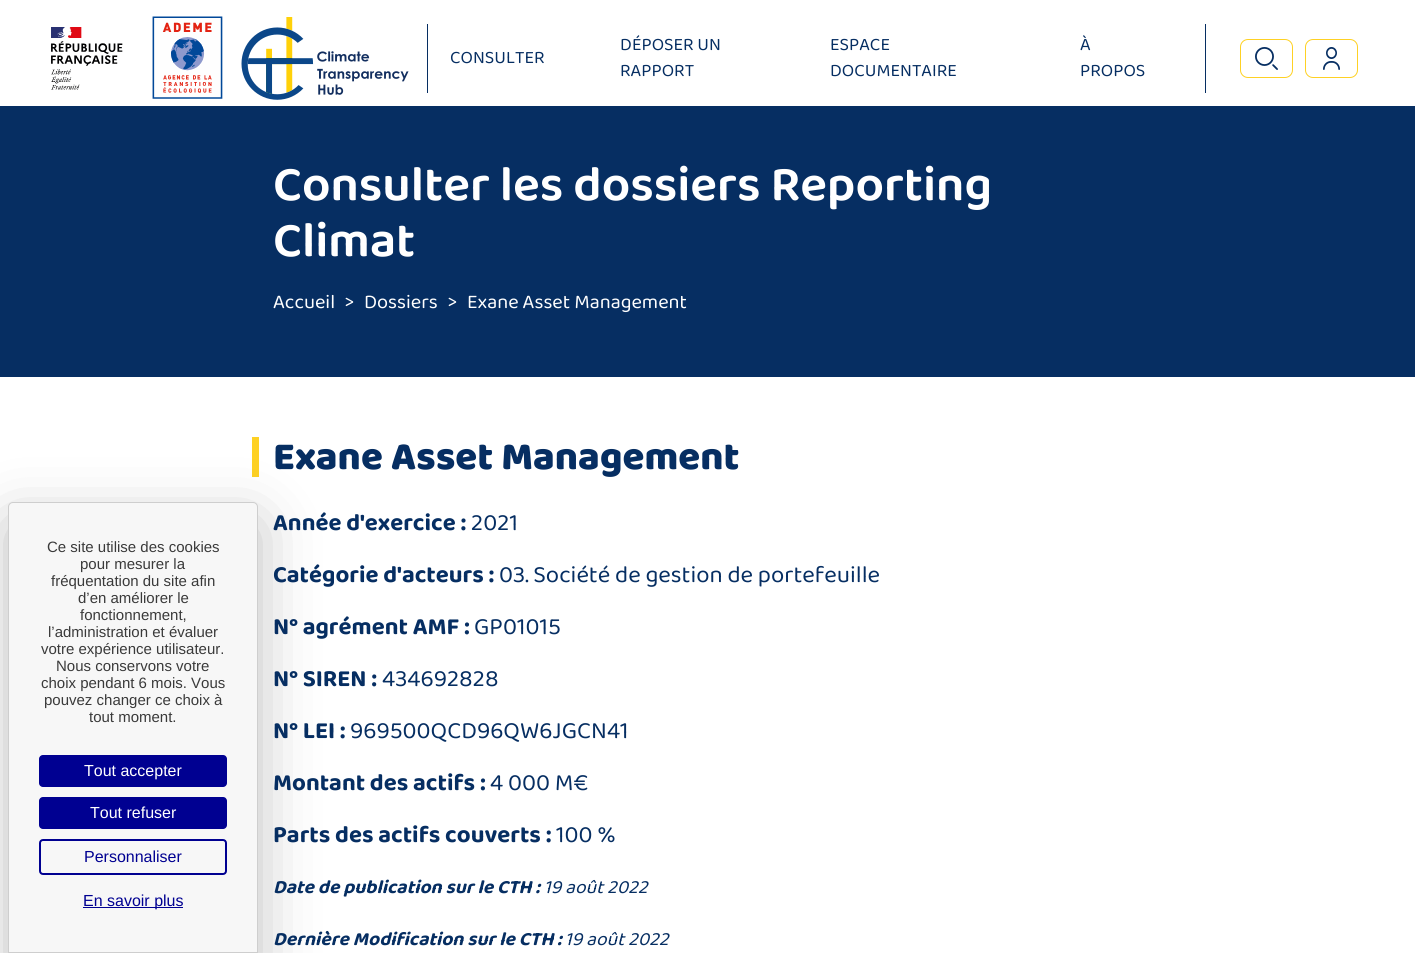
#include <cairo.h>
#include <math.h>
#include <stddef.h>


static void round_rect(cairo_t *cr, double x, double y, double w, double h, double r) {
    cairo_new_sub_path(cr);
    cairo_arc(cr, x + w - r, y + h - r, r, 0, M_PI / 2);
    cairo_arc(cr, x + r, y + h - r, r, M_PI / 2, M_PI);
    cairo_arc(cr, x + r, y + r, r, M_PI, 1.5 * M_PI);
    cairo_arc(cr, x + w - r, y + r, r, 1.5 * M_PI, 2 * M_PI);
    cairo_close_path(cr);
}

static void shadow(cairo_t *cr, double x, double y, double w, double h, double r, double blur, double alpha) {
    cairo_push_group_with_content(cr, CAIRO_CONTENT_ALPHA);
    cairo_set_operator(cr, CAIRO_OPERATOR_SOURCE);
    for (int i = 15; i >= -15 && fmin(w, h) + blur * i / 3 > 0; i -= 2) {
        double e = blur * i / 6;
        cairo_set_source_rgba(cr, 0, 0, 0, alpha * erfc((i - 1) / 8.5) / 2);
        round_rect(cr, x - e, y - e, w + 2 * e, h + 2 * e, fmax(0, fmin(r + e + blur * .6, fmin(w, h) / 2 + e)));
        cairo_fill(cr);
    }
    cairo_pattern_t *soft = cairo_pop_group(cr);
    cairo_mask(cr, soft);
    cairo_pattern_destroy(soft);
}

static void picture(cairo_t *cr, const char *path, double x, double y, double w, double h) {
    cairo_surface_t *image = cairo_image_surface_create_from_png(path);
    cairo_save(cr);
    cairo_set_source_surface(cr, image, x, y);
    cairo_rectangle(cr, x, y, w, h);
    cairo_fill(cr);
    cairo_restore(cr);
    cairo_surface_destroy(image);
}

int main(void) {
    cairo_surface_t *surface = cairo_image_surface_create(CAIRO_FORMAT_RGB24, 1415, 953);
    cairo_t *cr = cairo_create(surface);
    cairo_font_options_t *options = cairo_font_options_create();
    cairo_font_options_set_hint_metrics(options, CAIRO_HINT_METRICS_OFF);
    cairo_font_options_set_hint_style(options, CAIRO_HINT_STYLE_NONE);
    cairo_set_font_options(cr, options);
    cairo_set_miter_limit(cr, 4);
    cairo_set_source_rgb(cr, 1, 1, 1);
    cairo_paint(cr);
    cairo_set_source_rgb(cr, 0.024, 0.18, 0.384);
    cairo_rectangle(cr, 0, 106, 1415, 271);
    cairo_fill(cr);
    picture(cr, "img1.png", 51, 27, 72, 63);
    picture(cr, "img2.png", 152, 16, 71, 83);
    picture(cr, "img3.png", 241, 17, 168, 83);
    cairo_rectangle(cr, 427, 24, 1, 69);
    cairo_fill(cr);
    cairo_select_font_face(cr, "Baloo Thambi 2", CAIRO_FONT_SLANT_NORMAL, CAIRO_FONT_WEIGHT_NORMAL);
    cairo_set_font_size(cr, 18);
    cairo_move_to(cr, 450, 63);
    cairo_show_text(cr, "CONSULTER");
    cairo_move_to(cr, 620, 50);
    cairo_show_text(cr, "DÉPOSER UN");
    cairo_move_to(cr, 620, 76);
    cairo_show_text(cr, "RAPPORT");
    cairo_move_to(cr, 830, 50);
    cairo_show_text(cr, "ESPACE");
    cairo_move_to(cr, 830, 76);
    cairo_show_text(cr, "DOCUMENTAIRE");
    cairo_move_to(cr, 1080, 50);
    cairo_show_text(cr, "À");
    cairo_move_to(cr, 1080, 76);
    cairo_show_text(cr, "PROPOS");
    cairo_rectangle(cr, 1205, 24, 1, 69);
    cairo_fill(cr);
    round_rect(cr, 1240.5, 39.5, 52, 38, 7.5);
    cairo_set_source_rgb(cr, 0.996, 0.82, 0.141);
    cairo_set_line_width(cr, 1);
    cairo_stroke(cr);
    picture(cr, "img4.png", 1255, 47, 23, 23);
    round_rect(cr, 1305.5, 39.5, 52, 38, 7.5);
    cairo_stroke(cr);
    picture(cr, "img5.png", 1323, 47, 17, 23);
    cairo_rectangle(cr, 252, 437, 7, 40);
    cairo_fill(cr);
    cairo_set_source_rgb(cr, 0, 0, 0);
    shadow(cr, 8, 522, 250, 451, 5, 30, 0.25);
    cairo_set_source_rgb(cr, 0.965, 0.965, 0.965);
    cairo_new_path(cr);
    cairo_move_to(cr, 13, 502.5);
    cairo_line_to(cr, 253, 502.5);
    cairo_curve_to(cr, 255.5, 502.5, 257.5, 504.5, 257.5, 507);
    cairo_line_to(cr, 257.5, 952.5);
    cairo_line_to(cr, 8.5, 952.5);
    cairo_line_to(cr, 8.5, 507);
    cairo_curve_to(cr, 8.5, 504.5, 10.5, 502.5, 13, 502.5);
    cairo_close_path(cr);
    cairo_fill_preserve(cr);
    cairo_set_source_rgb(cr, 0.808, 0.808, 0.808);
    cairo_stroke(cr);
    cairo_select_font_face(cr, "Liberation Sans", CAIRO_FONT_SLANT_NORMAL, CAIRO_FONT_WEIGHT_NORMAL);
    cairo_set_font_size(cr, 15);
    cairo_set_source_rgb(cr, 0.227, 0.227, 0.227);
    cairo_move_to(cr, 47, 552);
    cairo_show_text(cr, "Ce site utilise des cookies");
    cairo_move_to(cr, 80, 569);
    cairo_show_text(cr, "pour mesurer la");
    cairo_move_to(cr, 51, 586);
    cairo_show_text(cr, "fréquentation du site afin");
    cairo_move_to(cr, 78, 603);
    cairo_show_text(cr, "d’en améliorer le");
    cairo_move_to(cr, 80, 620);
    cairo_show_text(cr, "fonctionnement,");
    cairo_move_to(cr, 48, 637);
    cairo_show_text(cr, "l’administration et évaluer");
    cairo_move_to(cr, 41, 654);
    cairo_show_text(cr, "votre expérience utilisateur.");
    cairo_move_to(cr, 56, 671);
    cairo_show_text(cr, "Nous conservons votre");
    cairo_move_to(cr, 41, 688);
    cairo_show_text(cr, "choix pendant 6 mois. Vous");
    cairo_move_to(cr, 44, 705);
    cairo_show_text(cr, "pouvez changer ce choix à");
    cairo_move_to(cr, 89, 722);
    cairo_show_text(cr, "tout moment.");
    cairo_set_source_rgb(cr, 0, 0, 0.569);
    round_rect(cr, 39, 755, 188, 32, 4);
    cairo_fill(cr);
    cairo_set_font_size(cr, 16);
    cairo_set_source_rgb(cr, 1, 1, 1);
    cairo_move_to(cr, 84, 776);
    cairo_show_text(cr, "Tout accepter");
    cairo_set_source_rgb(cr, 0, 0, 0.569);
    round_rect(cr, 39, 797, 188, 32, 4);
    cairo_fill(cr);
    cairo_set_source_rgb(cr, 1, 1, 1);
    cairo_move_to(cr, 90, 818);
    cairo_show_text(cr, "Tout refuser");
    round_rect(cr, 40, 840, 186, 34, 3);
    cairo_set_source_rgb(cr, 0, 0, 0.569);
    cairo_set_line_width(cr, 2);
    cairo_stroke(cr);
    cairo_move_to(cr, 84, 862);
    cairo_show_text(cr, "Personnaliser");
    cairo_rectangle(cr, 83, 907, 100, 1);
    cairo_fill(cr);
    cairo_move_to(cr, 83, 906);
    cairo_show_text(cr, "En savoir plus");
    cairo_select_font_face(cr, "Baloo Thambi 2 SemiBold", CAIRO_FONT_SLANT_NORMAL, CAIRO_FONT_WEIGHT_NORMAL);
    cairo_set_font_size(cr, 50);
    cairo_set_source_rgb(cr, 1, 1, 1);
    cairo_move_to(cr, 273, 200);
    cairo_show_text(cr, "Consulter les dossiers Reporting");
    cairo_move_to(cr, 273, 256);
    cairo_show_text(cr, "Climat");
    cairo_select_font_face(cr, "Baloo Thambi 2", CAIRO_FONT_SLANT_NORMAL, CAIRO_FONT_WEIGHT_NORMAL);
    cairo_set_font_size(cr, 20);
    cairo_move_to(cr, 273, 308);
    cairo_show_text(cr, "Accueil");
    cairo_move_to(cr, 345, 308);
    cairo_show_text(cr, ">");
    cairo_move_to(cr, 364, 308);
    cairo_show_text(cr, "Dossiers");
    cairo_move_to(cr, 448, 308);
    cairo_show_text(cr, ">");
    cairo_move_to(cr, 467, 308);
    cairo_show_text(cr, "Exane Asset Management");
    cairo_select_font_face(cr, "Baloo Thambi 2 ExtraBold", CAIRO_FONT_SLANT_NORMAL, CAIRO_FONT_WEIGHT_NORMAL);
    cairo_set_font_size(cr, 40);
    cairo_set_source_rgb(cr, 0.024, 0.18, 0.384);
    cairo_move_to(cr, 273, 469);
    cairo_show_text(cr, "Exane Asset Management");
    cairo_select_font_face(cr, "Baloo Thambi 2", CAIRO_FONT_SLANT_NORMAL, CAIRO_FONT_WEIGHT_BOLD);
    cairo_set_font_size(cr, 24);
    cairo_move_to(cr, 273, 530);
    cairo_show_text(cr, "Année d'exercice :");
    cairo_select_font_face(cr, "Baloo Thambi 2", CAIRO_FONT_SLANT_NORMAL, CAIRO_FONT_WEIGHT_NORMAL);
    cairo_move_to(cr, 471, 530);
    cairo_show_text(cr, "2021");
    cairo_select_font_face(cr, "Baloo Thambi 2", CAIRO_FONT_SLANT_NORMAL, CAIRO_FONT_WEIGHT_BOLD);
    cairo_move_to(cr, 273, 582);
    cairo_show_text(cr, "Catégorie d'acteurs :");
    cairo_select_font_face(cr, "Baloo Thambi 2", CAIRO_FONT_SLANT_NORMAL, CAIRO_FONT_WEIGHT_NORMAL);
    cairo_move_to(cr, 499, 582);
    cairo_show_text(cr, "03. Société de gestion de portefeuille");
    cairo_select_font_face(cr, "Baloo Thambi 2", CAIRO_FONT_SLANT_NORMAL, CAIRO_FONT_WEIGHT_BOLD);
    cairo_move_to(cr, 273, 634);
    cairo_show_text(cr, "N° agrément AMF :");
    cairo_select_font_face(cr, "Baloo Thambi 2", CAIRO_FONT_SLANT_NORMAL, CAIRO_FONT_WEIGHT_NORMAL);
    cairo_move_to(cr, 474, 634);
    cairo_show_text(cr, "GP01015");
    cairo_select_font_face(cr, "Baloo Thambi 2", CAIRO_FONT_SLANT_NORMAL, CAIRO_FONT_WEIGHT_BOLD);
    cairo_move_to(cr, 273, 686);
    cairo_show_text(cr, "N° SIREN :");
    cairo_select_font_face(cr, "Baloo Thambi 2", CAIRO_FONT_SLANT_NORMAL, CAIRO_FONT_WEIGHT_NORMAL);
    cairo_move_to(cr, 382, 686);
    cairo_show_text(cr, "434692828");
    cairo_select_font_face(cr, "Baloo Thambi 2", CAIRO_FONT_SLANT_NORMAL, CAIRO_FONT_WEIGHT_BOLD);
    cairo_move_to(cr, 273, 738);
    cairo_show_text(cr, "N° LEI :");
    cairo_select_font_face(cr, "Baloo Thambi 2", CAIRO_FONT_SLANT_NORMAL, CAIRO_FONT_WEIGHT_NORMAL);
    cairo_move_to(cr, 350, 738);
    cairo_show_text(cr, "969500QCD96QW6JGCN41");
    cairo_select_font_face(cr, "Baloo Thambi 2", CAIRO_FONT_SLANT_NORMAL, CAIRO_FONT_WEIGHT_BOLD);
    cairo_move_to(cr, 273, 790);
    cairo_show_text(cr, "Montant des actifs :");
    cairo_select_font_face(cr, "Baloo Thambi 2", CAIRO_FONT_SLANT_NORMAL, CAIRO_FONT_WEIGHT_NORMAL);
    cairo_move_to(cr, 490, 790);
    cairo_show_text(cr, "4 000 M€");
    cairo_select_font_face(cr, "Baloo Thambi 2", CAIRO_FONT_SLANT_NORMAL, CAIRO_FONT_WEIGHT_BOLD);
    cairo_move_to(cr, 273, 842);
    cairo_show_text(cr, "Parts des actifs couverts :");
    cairo_select_font_face(cr, "Baloo Thambi 2", CAIRO_FONT_SLANT_NORMAL, CAIRO_FONT_WEIGHT_NORMAL);
    cairo_move_to(cr, 556, 842);
    cairo_show_text(cr, "100 %");
    cairo_select_font_face(cr, "Baloo Thambi 2", CAIRO_FONT_SLANT_ITALIC, CAIRO_FONT_WEIGHT_BOLD);
    cairo_set_font_size(cr, 19.25);
    cairo_move_to(cr, 273, 893);
    cairo_show_text(cr, "Date de publication sur le CTH :");
    cairo_select_font_face(cr, "Baloo Thambi 2", CAIRO_FONT_SLANT_ITALIC, CAIRO_FONT_WEIGHT_NORMAL);
    cairo_move_to(cr, 544, 893);
    cairo_show_text(cr, "19 août 2022");
    cairo_select_font_face(cr, "Baloo Thambi 2", CAIRO_FONT_SLANT_ITALIC, CAIRO_FONT_WEIGHT_BOLD);
    cairo_move_to(cr, 273, 945);
    cairo_show_text(cr, "Dernière Modification sur le CTH :");
    cairo_select_font_face(cr, "Baloo Thambi 2", CAIRO_FONT_SLANT_ITALIC, CAIRO_FONT_WEIGHT_NORMAL);
    cairo_move_to(cr, 565, 945);
    cairo_show_text(cr, "19 août 2022");
    cairo_surface_write_to_png(surface, "page.png");
    cairo_font_options_destroy(options);
    cairo_destroy(cr);
    cairo_surface_destroy(surface);
    return 0;
}
